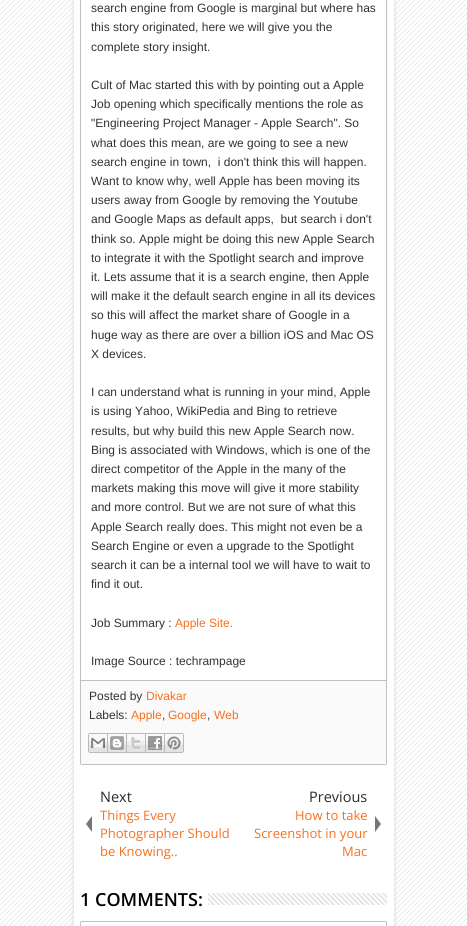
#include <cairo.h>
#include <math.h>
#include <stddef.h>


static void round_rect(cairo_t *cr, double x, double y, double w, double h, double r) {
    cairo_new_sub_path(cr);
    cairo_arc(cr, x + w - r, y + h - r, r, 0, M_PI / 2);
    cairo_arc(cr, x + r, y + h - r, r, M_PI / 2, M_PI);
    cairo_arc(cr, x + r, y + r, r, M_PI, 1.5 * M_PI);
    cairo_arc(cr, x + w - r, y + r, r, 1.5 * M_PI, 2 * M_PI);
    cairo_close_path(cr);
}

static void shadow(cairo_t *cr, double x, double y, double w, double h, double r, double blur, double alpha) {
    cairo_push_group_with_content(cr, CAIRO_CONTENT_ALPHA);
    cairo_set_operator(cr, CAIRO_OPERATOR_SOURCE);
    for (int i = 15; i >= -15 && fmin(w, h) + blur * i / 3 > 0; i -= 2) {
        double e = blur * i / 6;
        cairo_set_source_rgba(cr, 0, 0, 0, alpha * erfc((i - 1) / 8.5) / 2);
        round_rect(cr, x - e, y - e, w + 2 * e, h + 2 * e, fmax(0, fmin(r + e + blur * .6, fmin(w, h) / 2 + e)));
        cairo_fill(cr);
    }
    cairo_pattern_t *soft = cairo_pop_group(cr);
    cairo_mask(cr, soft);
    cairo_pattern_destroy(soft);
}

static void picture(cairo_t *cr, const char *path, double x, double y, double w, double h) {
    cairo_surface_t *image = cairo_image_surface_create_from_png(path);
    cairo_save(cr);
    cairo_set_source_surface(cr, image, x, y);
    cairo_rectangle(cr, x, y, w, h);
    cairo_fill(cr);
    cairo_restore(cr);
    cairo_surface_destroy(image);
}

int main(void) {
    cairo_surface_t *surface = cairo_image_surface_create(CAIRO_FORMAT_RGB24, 467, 926);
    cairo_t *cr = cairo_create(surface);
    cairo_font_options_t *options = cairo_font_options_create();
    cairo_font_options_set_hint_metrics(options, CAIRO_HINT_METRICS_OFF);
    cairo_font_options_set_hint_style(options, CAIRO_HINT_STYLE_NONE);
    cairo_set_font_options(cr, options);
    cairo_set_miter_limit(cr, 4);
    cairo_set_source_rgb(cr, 1, 1, 1);
    cairo_paint(cr);
    picture(cr, "img1.png", 0, 0, 467, 926);
    cairo_set_source_rgb(cr, 0.827, 0.827, 0.827);
    shadow(cr, 74, -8, 320, 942, 0, 2.5, 1);
    cairo_set_source_rgb(cr, 1, 1, 1);
    cairo_rectangle(cr, 74, 0, 320, 926);
    cairo_fill(cr);
    round_rect(cr, 80.5, -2.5, 306, 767, 1.5);
    cairo_set_source_rgb(cr, 0.753, 0.753, 0.753);
    cairo_set_line_width(cr, 1);
    cairo_stroke(cr);
    cairo_select_font_face(cr, "Liberation Sans", CAIRO_FONT_SLANT_NORMAL, CAIRO_FONT_WEIGHT_NORMAL);
    cairo_set_font_size(cr, 12);
    cairo_set_source_rgb(cr, 0.2, 0.2, 0.2);
    cairo_move_to(cr, 91, 12);
    cairo_show_text(cr, "search engine from Google is marginal but where has");
    cairo_move_to(cr, 91, 31);
    cairo_show_text(cr, "this story originated, here we will give you the");
    cairo_move_to(cr, 91, 51);
    cairo_show_text(cr, "complete story insight.");
    cairo_move_to(cr, 91, 89);
    cairo_show_text(cr, "Cult of Mac started this with by pointing out a Apple");
    cairo_move_to(cr, 91, 108);
    cairo_show_text(cr, "Job opening which specifically mentions the role as");
    cairo_move_to(cr, 91, 127);
    cairo_show_text(cr, "\"Engineering Project Manager - Apple Search\". So");
    cairo_move_to(cr, 91, 147);
    cairo_show_text(cr, "what does this mean, are we going to see a new");
    cairo_move_to(cr, 91, 166);
    cairo_show_text(cr, "search engine in town,  i don't think this will happen.");
    cairo_move_to(cr, 91, 185);
    cairo_show_text(cr, "Want to know why, well Apple has been moving its");
    cairo_move_to(cr, 91, 204);
    cairo_show_text(cr, "users away from Google by removing the Youtube");
    cairo_move_to(cr, 91, 223);
    cairo_show_text(cr, "and Google Maps as default apps,  but search i don't");
    cairo_move_to(cr, 91, 243);
    cairo_show_text(cr, "think so. Apple might be doing this new Apple Search");
    cairo_move_to(cr, 91, 262);
    cairo_show_text(cr, "to integrate it with the Spotlight search and improve");
    cairo_move_to(cr, 91, 281);
    cairo_show_text(cr, "it. Lets assume that it is a search engine, then Apple");
    cairo_move_to(cr, 91, 300);
    cairo_show_text(cr, "will make it the default search engine in all its devices");
    cairo_move_to(cr, 91, 319);
    cairo_show_text(cr, "so this will affect the market share of Google in a");
    cairo_move_to(cr, 91, 339);
    cairo_show_text(cr, "huge way as there are over a billion iOS and Mac OS");
    cairo_move_to(cr, 91, 358);
    cairo_show_text(cr, "X devices.");
    cairo_move_to(cr, 91, 396);
    cairo_show_text(cr, "I can understand what is running in your mind, Apple");
    cairo_move_to(cr, 91, 415);
    cairo_show_text(cr, "is using Yahoo, WikiPedia and Bing to retrieve");
    cairo_move_to(cr, 91, 435);
    cairo_show_text(cr, "results, but why build this new Apple Search now.");
    cairo_move_to(cr, 91, 454);
    cairo_show_text(cr, "Bing is associated with Windows, which is one of the");
    cairo_move_to(cr, 91, 473);
    cairo_show_text(cr, "direct competitor of the Apple in the many of the");
    cairo_move_to(cr, 91, 492);
    cairo_show_text(cr, "markets making this move will give it more stability");
    cairo_move_to(cr, 91, 511);
    cairo_show_text(cr, "and more control. But we are not sure of what this");
    cairo_move_to(cr, 91, 531);
    cairo_show_text(cr, "Apple Search really does. This might not even be a");
    cairo_move_to(cr, 91, 550);
    cairo_show_text(cr, "Search Engine or even a upgrade to the Spotlight");
    cairo_move_to(cr, 91, 569);
    cairo_show_text(cr, "search it can be a internal tool we will have to wait to");
    cairo_move_to(cr, 91, 588);
    cairo_show_text(cr, "find it out.");
    cairo_move_to(cr, 91, 627);
    cairo_show_text(cr, "Job Summary :");
    cairo_set_source_rgb(cr, 0.965, 0.439, 0.114);
    cairo_move_to(cr, 175, 627);
    cairo_show_text(cr, "Apple Site.");
    cairo_set_source_rgb(cr, 0.2, 0.2, 0.2);
    cairo_move_to(cr, 91, 665);
    cairo_show_text(cr, "Image Source : techrampage");
    cairo_set_source_rgb(cr, 0.98, 0.98, 0.98);
    cairo_rectangle(cr, 81, 681, 305, 83);
    cairo_fill(cr);
    cairo_set_source_rgb(cr, 0.753, 0.753, 0.753);
    cairo_rectangle(cr, 81, 680, 305, 1);
    cairo_fill(cr);
    cairo_set_source_rgb(cr, 0.2, 0.2, 0.2);
    cairo_move_to(cr, 89, 700);
    cairo_show_text(cr, "Posted by");
    cairo_set_source_rgb(cr, 0.965, 0.439, 0.114);
    cairo_move_to(cr, 146, 700);
    cairo_show_text(cr, "Divakar");
    cairo_set_source_rgb(cr, 0.2, 0.2, 0.2);
    cairo_move_to(cr, 89, 719);
    cairo_show_text(cr, "Labels:");
    cairo_set_source_rgb(cr, 0.965, 0.439, 0.114);
    cairo_move_to(cr, 131, 719);
    cairo_show_text(cr, "Apple");
    cairo_set_source_rgb(cr, 0.2, 0.2, 0.2);
    cairo_move_to(cr, 162, 719);
    cairo_show_text(cr, ",");
    cairo_set_source_rgb(cr, 0.965, 0.439, 0.114);
    cairo_move_to(cr, 168, 719);
    cairo_show_text(cr, "Google");
    cairo_set_source_rgb(cr, 0.2, 0.2, 0.2);
    cairo_move_to(cr, 207, 719);
    cairo_show_text(cr, ",");
    cairo_set_source_rgb(cr, 0.965, 0.439, 0.114);
    cairo_move_to(cr, 214, 719);
    cairo_show_text(cr, "Web");
    picture(cr, "img2.png", 88, 733, 20, 20);
    picture(cr, "img3.png", 108, 733, 19, 20);
    picture(cr, "img4.png", 127, 733, 19, 20);
    picture(cr, "img5.png", 146, 733, 19, 20);
    picture(cr, "img6.png", 165, 733, 19, 20);
    cairo_select_font_face(cr, "Open Sans", CAIRO_FONT_SLANT_NORMAL, CAIRO_FONT_WEIGHT_NORMAL);
    cairo_set_font_size(cr, 14.5);
    cairo_set_source_rgb(cr, 0.173, 0.173, 0.173);
    cairo_move_to(cr, 100, 802);
    cairo_show_text(cr, "Next");
    cairo_set_source_rgb(cr, 0.467, 0.463, 0.463);
    cairo_new_path(cr);
    cairo_move_to(cr, 92, 816);
    cairo_line_to(cr, 92, 832);
    cairo_line_to(cr, 86, 824);
    cairo_close_path(cr);
    cairo_fill(cr);
    cairo_set_font_size(cr, 13);
    cairo_set_source_rgb(cr, 0.965, 0.439, 0.114);
    cairo_move_to(cr, 100, 820);
    cairo_show_text(cr, "Things Every");
    cairo_move_to(cr, 100, 838);
    cairo_show_text(cr, "Photographer Should");
    cairo_move_to(cr, 100, 856);
    cairo_show_text(cr, "be Knowing..");
    cairo_set_font_size(cr, 14.5);
    cairo_set_source_rgb(cr, 0.173, 0.173, 0.173);
    cairo_move_to(cr, 309, 802);
    cairo_show_text(cr, "Previous");
    cairo_set_font_size(cr, 13);
    cairo_set_source_rgb(cr, 0.965, 0.439, 0.114);
    cairo_move_to(cr, 295, 820);
    cairo_show_text(cr, "How to take");
    cairo_move_to(cr, 254, 838);
    cairo_show_text(cr, "Screenshot in your");
    cairo_move_to(cr, 342, 856);
    cairo_show_text(cr, "Mac");
    cairo_set_source_rgb(cr, 0.467, 0.463, 0.463);
    cairo_new_path(cr);
    cairo_move_to(cr, 375, 832);
    cairo_line_to(cr, 375, 816);
    cairo_line_to(cr, 381, 824);
    cairo_close_path(cr);
    cairo_fill(cr);
    picture(cr, "img7.png", 208, 893, 179, 12);
    cairo_select_font_face(cr, "Open Sans SemiBold", CAIRO_FONT_SLANT_NORMAL, CAIRO_FONT_WEIGHT_NORMAL);
    cairo_set_font_size(cr, 18);
    cairo_set_source_rgb(cr, 0, 0, 0);
    cairo_move_to(cr, 80, 906);
    cairo_show_text(cr, "1 COMMENTS:");
    round_rect(cr, 80.5, 921.5, 306, 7, 1.5);
    cairo_set_source_rgb(cr, 0.753, 0.753, 0.753);
    cairo_stroke(cr);
    cairo_surface_write_to_png(surface, "page.png");
    cairo_font_options_destroy(options);
    cairo_destroy(cr);
    cairo_surface_destroy(surface);
    return 0;
}
